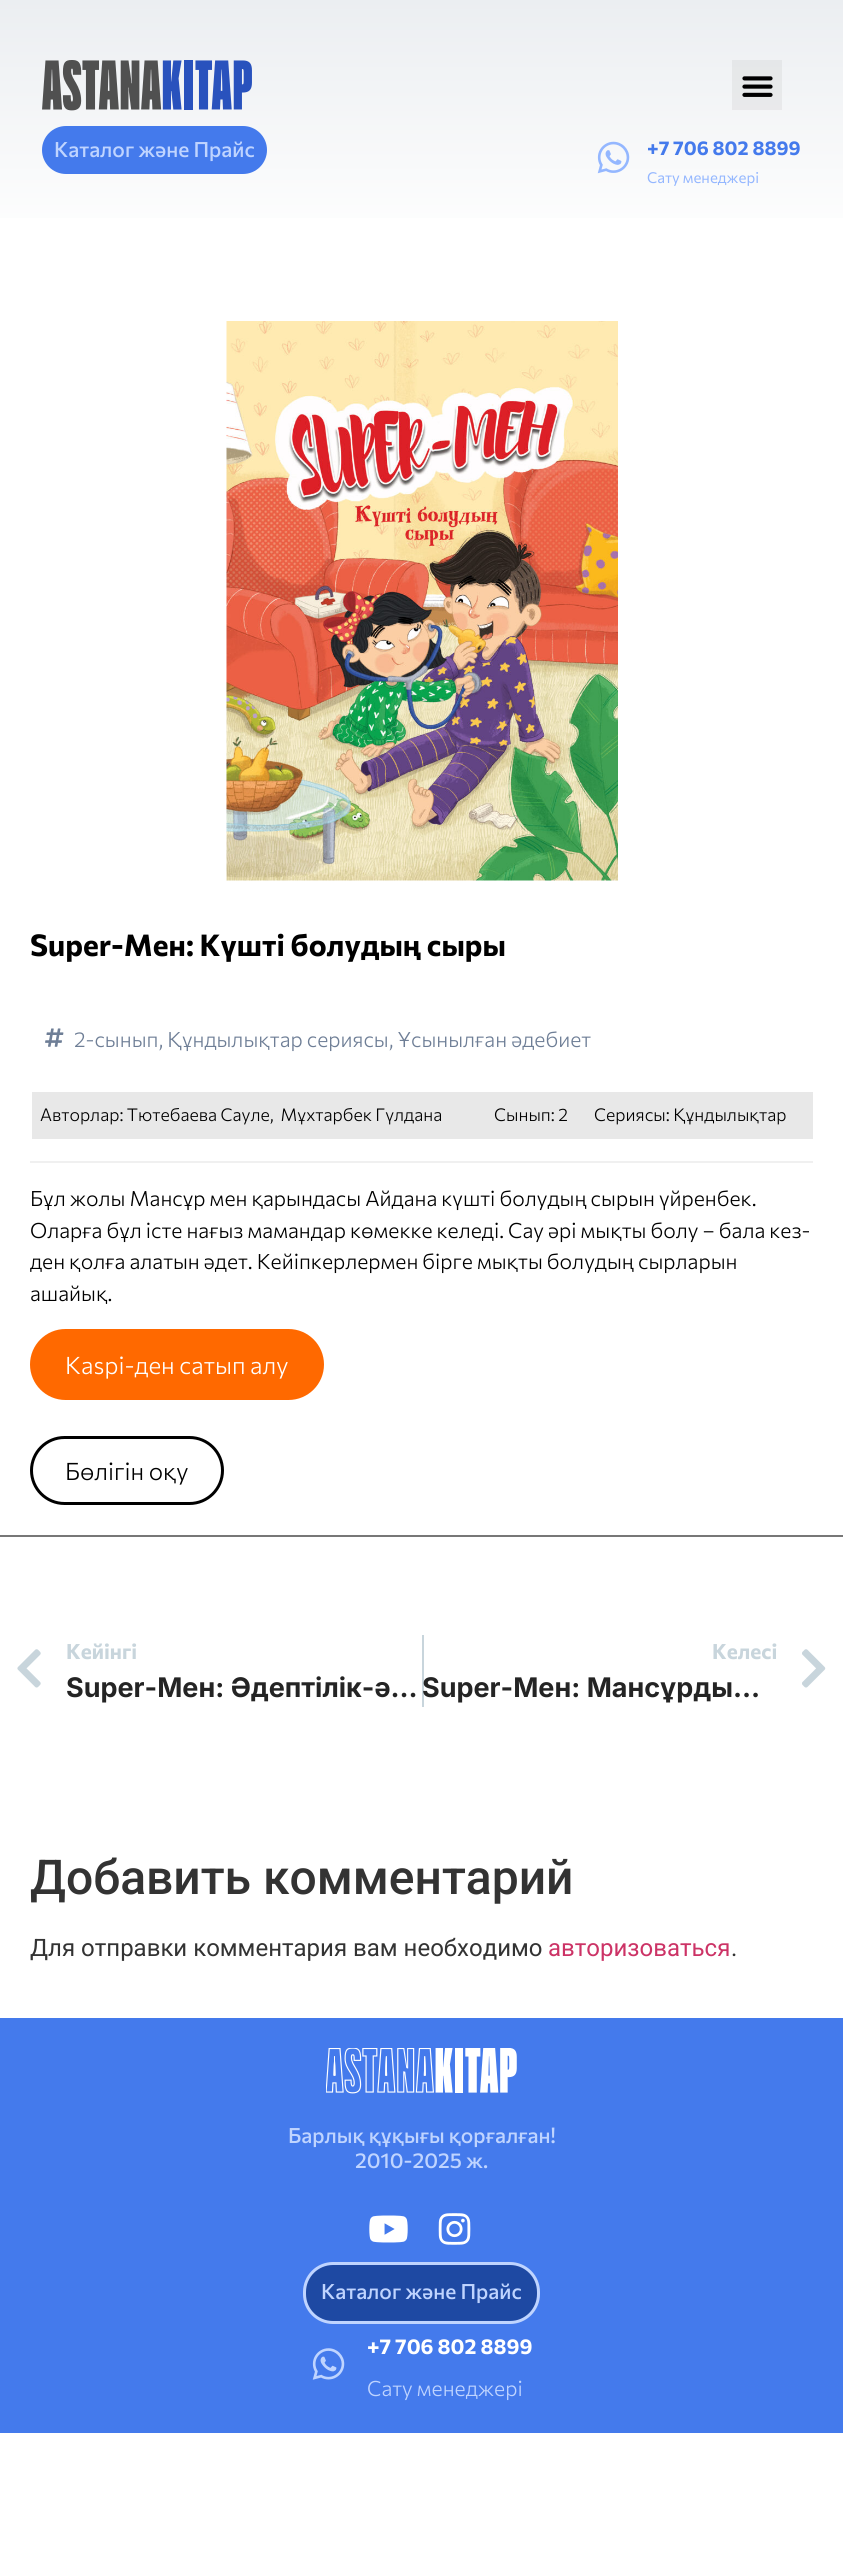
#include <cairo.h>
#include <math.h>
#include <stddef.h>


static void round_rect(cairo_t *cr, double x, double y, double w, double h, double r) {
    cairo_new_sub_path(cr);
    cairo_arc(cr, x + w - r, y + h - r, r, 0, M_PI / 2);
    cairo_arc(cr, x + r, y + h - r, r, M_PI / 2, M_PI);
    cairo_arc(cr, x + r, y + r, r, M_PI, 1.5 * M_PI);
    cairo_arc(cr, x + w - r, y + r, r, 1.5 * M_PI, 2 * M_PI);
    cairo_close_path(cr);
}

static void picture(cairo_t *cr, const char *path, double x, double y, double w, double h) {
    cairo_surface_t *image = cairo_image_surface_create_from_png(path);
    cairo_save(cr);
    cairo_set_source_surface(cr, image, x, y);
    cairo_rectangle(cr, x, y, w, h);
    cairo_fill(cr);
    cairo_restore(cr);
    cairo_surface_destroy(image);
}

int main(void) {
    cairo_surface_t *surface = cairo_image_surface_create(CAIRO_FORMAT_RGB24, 843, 2549);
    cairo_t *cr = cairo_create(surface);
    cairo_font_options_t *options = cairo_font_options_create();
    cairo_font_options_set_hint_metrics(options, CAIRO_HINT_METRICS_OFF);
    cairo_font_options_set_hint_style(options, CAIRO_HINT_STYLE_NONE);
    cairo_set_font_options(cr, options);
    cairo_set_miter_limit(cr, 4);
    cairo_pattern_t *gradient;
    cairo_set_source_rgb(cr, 1, 1, 1);
    cairo_paint(cr);
    gradient = cairo_pattern_create_linear(422, 0, 422, 249);
    cairo_pattern_add_color_stop_rgba(gradient, 0, 0.922, 0.933, 0.945, 1);
    cairo_pattern_add_color_stop_rgba(gradient, 1, 1, 1, 1, 1);
    cairo_set_source(cr, gradient);
    cairo_pattern_destroy(gradient);
    cairo_rectangle(cr, 0, 0, 843, 218);
    cairo_fill(cr);
    picture(cr, "img1.png", 42, 60, 210, 51);
    cairo_set_source_rgba(cr, 0, 0, 0, 0.05);
    cairo_rectangle(cr, 732, 60, 50, 50);
    cairo_fill(cr);
    picture(cr, "img2.png", 742, 76, 31, 21);
    cairo_set_source_rgb(cr, 0.267, 0.478, 0.922);
    round_rect(cr, 42, 126, 225, 48, 24);
    cairo_fill(cr);
    cairo_select_font_face(cr, "Commissioner Medium", CAIRO_FONT_SLANT_NORMAL, CAIRO_FONT_WEIGHT_NORMAL);
    cairo_set_font_size(cr, 21);
    cairo_set_source_rgb(cr, 0.749, 0.831, 1);
    cairo_move_to(cr, 54, 157);
    cairo_show_text(cr, "Каталог және Прайс");
    picture(cr, "img3.png", 597, 141, 33, 33);
    cairo_select_font_face(cr, "Commissioner", CAIRO_FONT_SLANT_NORMAL, CAIRO_FONT_WEIGHT_BOLD);
    cairo_set_font_size(cr, 19.5);
    cairo_set_source_rgb(cr, 0.267, 0.478, 0.922);
    cairo_move_to(cr, 647, 155);
    cairo_show_text(cr, "+7 706 802 8899");
    cairo_select_font_face(cr, "Commissioner", CAIRO_FONT_SLANT_NORMAL, CAIRO_FONT_WEIGHT_NORMAL);
    cairo_set_font_size(cr, 15);
    cairo_set_source_rgb(cr, 0.58, 0.718, 1);
    cairo_move_to(cr, 647, 183);
    cairo_show_text(cr, "Сату менеджері");
    cairo_set_source_rgb(cr, 0.467, 0.467, 0.467);
    cairo_rectangle(cr, 0, 1535, 843, 2);
    cairo_fill(cr);
    picture(cr, "img4.png", 226, 321, 392, 560);
    cairo_select_font_face(cr, "Commissioner", CAIRO_FONT_SLANT_NORMAL, CAIRO_FONT_WEIGHT_BOLD);
    cairo_set_font_size(cr, 30);
    cairo_set_source_rgb(cr, 0, 0, 0);
    cairo_move_to(cr, 30, 956);
    cairo_show_text(cr, "Super-Мен: Күшті болудың сыры");
    picture(cr, "img5.png", 45, 1028, 19, 19);
    cairo_select_font_face(cr, "Commissioner Light", CAIRO_FONT_SLANT_NORMAL, CAIRO_FONT_WEIGHT_NORMAL);
    cairo_set_font_size(cr, 21);
    cairo_set_source_rgb(cr, 0.431, 0.494, 0.588);
    cairo_move_to(cr, 74, 1047);
    cairo_show_text(cr, "2-сынып, Құндылықтар сериясы, Ұсынылған әдебиет");
    cairo_set_source_rgb(cr, 0.941, 0.941, 0.941);
    cairo_rectangle(cr, 30, 1161, 783, 2);
    cairo_fill(cr);
    cairo_set_source_rgb(cr, 0.91, 0.91, 0.91);
    cairo_rectangle(cr, 32, 1092, 781, 47);
    cairo_fill(cr);
    cairo_set_font_size(cr, 17.55);
    cairo_set_source_rgb(cr, 0, 0, 0);
    cairo_move_to(cr, 40, 1121);
    cairo_show_text(cr, "Авторлар: Тютебаева Сауле,  Мұхтарбек Гүлдана");
    cairo_move_to(cr, 494, 1121);
    cairo_show_text(cr, "Сынып: 2");
    cairo_move_to(cr, 594, 1121);
    cairo_show_text(cr, "Сериясы: Құндылықтар");
    cairo_set_font_size(cr, 21);
    cairo_move_to(cr, 30, 1206);
    cairo_show_text(cr, "Бұл жолы Мансұр мен қарындасы Айдана күшті болудың сырын үйренбек.");
    cairo_move_to(cr, 30, 1238);
    cairo_show_text(cr, "Оларға бұл істе нағыз мамандар көмекке келеді. Сау әрі мықты болу – бала кез-");
    cairo_move_to(cr, 30, 1269);
    cairo_show_text(cr, "ден қолға алатын әдет. Кейіпкерлермен бірге мықты болудың сырларын");
    cairo_move_to(cr, 30, 1301);
    cairo_show_text(cr, "ашайық.");
    cairo_set_source_rgb(cr, 1, 0.412, 0);
    round_rect(cr, 30, 1329, 294, 71, 35.5);
    cairo_fill(cr);
    cairo_set_font_size(cr, 24);
    cairo_set_source_rgb(cr, 1, 1, 1);
    cairo_move_to(cr, 65, 1374);
    cairo_show_text(cr, "Kaspi-ден сатып алу");
    round_rect(cr, 31.5, 1437.5, 191, 66, 33);
    cairo_set_source_rgb(cr, 0, 0, 0);
    cairo_set_line_width(cr, 3);
    cairo_stroke(cr);
    cairo_move_to(cr, 65, 1480);
    cairo_show_text(cr, "Бөлігін оқу");
    picture(cr, "img6.png", 17, 1649, 24, 39);
    cairo_select_font_face(cr, "Commissioner", CAIRO_FONT_SLANT_NORMAL, CAIRO_FONT_WEIGHT_BOLD);
    cairo_set_font_size(cr, 21);
    cairo_set_source_rgb(cr, 0.784, 0.835, 0.863);
    cairo_move_to(cr, 66, 1659);
    cairo_show_text(cr, "Кейінгі");
    cairo_select_font_face(cr, "Inter", CAIRO_FONT_SLANT_NORMAL, CAIRO_FONT_WEIGHT_BOLD);
    cairo_set_font_size(cr, 27);
    cairo_set_source_rgb(cr, 0.141, 0.141, 0.141);
    cairo_move_to(cr, 66, 1697);
    cairo_show_text(cr, "Super-Мен: Әдептілік-ә…");
    cairo_set_source_rgb(cr, 0.784, 0.835, 0.863);
    cairo_rectangle(cr, 422, 1635, 2, 72);
    cairo_fill(cr);
    cairo_select_font_face(cr, "Commissioner", CAIRO_FONT_SLANT_NORMAL, CAIRO_FONT_WEIGHT_BOLD);
    cairo_set_font_size(cr, 21);
    cairo_move_to(cr, 712, 1659);
    cairo_show_text(cr, "Келесі");
    cairo_select_font_face(cr, "Inter", CAIRO_FONT_SLANT_NORMAL, CAIRO_FONT_WEIGHT_BOLD);
    cairo_set_font_size(cr, 27);
    cairo_set_source_rgb(cr, 0.141, 0.141, 0.141);
    cairo_move_to(cr, 422, 1697);
    cairo_show_text(cr, "Super-Мен: Мансұрды…");
    picture(cr, "img7.png", 802, 1649, 24, 39);
    cairo_select_font_face(cr, "Roboto Medium", CAIRO_FONT_SLANT_NORMAL, CAIRO_FONT_WEIGHT_NORMAL);
    cairo_set_font_size(cr, 48);
    cairo_set_source_rgb(cr, 0.2, 0.2, 0.2);
    cairo_move_to(cr, 30, 1894);
    cairo_show_text(cr, "Добавить комментарий");
    cairo_select_font_face(cr, "Roboto", CAIRO_FONT_SLANT_NORMAL, CAIRO_FONT_WEIGHT_NORMAL);
    cairo_set_font_size(cr, 24);
    cairo_move_to(cr, 30, 1956);
    cairo_show_text(cr, "Для отправки комментария вам необходимо");
    cairo_set_source_rgb(cr, 0.8, 0.2, 0.4);
    cairo_move_to(cr, 548, 1956);
    cairo_show_text(cr, "авторизоваться");
    cairo_set_source_rgb(cr, 0.2, 0.2, 0.2);
    cairo_move_to(cr, 731, 1956);
    cairo_show_text(cr, ".");
    cairo_set_source_rgb(cr, 0.267, 0.478, 0.922);
    cairo_rectangle(cr, 0, 2018, 843, 415);
    cairo_fill(cr);
    picture(cr, "img8.png", 326, 2048, 191, 46);
    cairo_select_font_face(cr, "Commissioner Medium", CAIRO_FONT_SLANT_NORMAL, CAIRO_FONT_WEIGHT_NORMAL);
    cairo_set_font_size(cr, 21);
    cairo_set_source_rgb(cr, 0.749, 0.831, 1);
    cairo_move_to(cr, 288, 2143);
    cairo_show_text(cr, "Барлық құқығы қорғалған!");
    cairo_move_to(cr, 355, 2168);
    cairo_show_text(cr, "2010-2025 ж.");
    picture(cr, "img9.png", 369, 2215, 39, 28);
    picture(cr, "img10.png", 438, 2213, 33, 32);
    cairo_set_source_rgb(cr, 0.118, 0.286, 0.639);
    round_rect(cr, 304.5, 2263.5, 234, 59, 28.5);
    cairo_fill_preserve(cr);
    cairo_set_source_rgb(cr, 0.749, 0.831, 1);
    cairo_stroke(cr);
    cairo_move_to(cr, 321, 2299);
    cairo_show_text(cr, "Каталог және Прайс");
    picture(cr, "img11.png", 312, 2348, 33, 32);
    cairo_select_font_face(cr, "Commissioner", CAIRO_FONT_SLANT_NORMAL, CAIRO_FONT_WEIGHT_BOLD);
    cairo_set_source_rgb(cr, 1, 1, 1);
    cairo_move_to(cr, 367, 2354);
    cairo_show_text(cr, "+7 706 802 8899");
    cairo_select_font_face(cr, "Commissioner Light", CAIRO_FONT_SLANT_NORMAL, CAIRO_FONT_WEIGHT_NORMAL);
    cairo_set_source_rgb(cr, 0.749, 0.831, 1);
    cairo_move_to(cr, 367, 2396);
    cairo_show_text(cr, "Сату менеджері");
    cairo_surface_write_to_png(surface, "page.png");
    cairo_font_options_destroy(options);
    cairo_destroy(cr);
    cairo_surface_destroy(surface);
    return 0;
}
